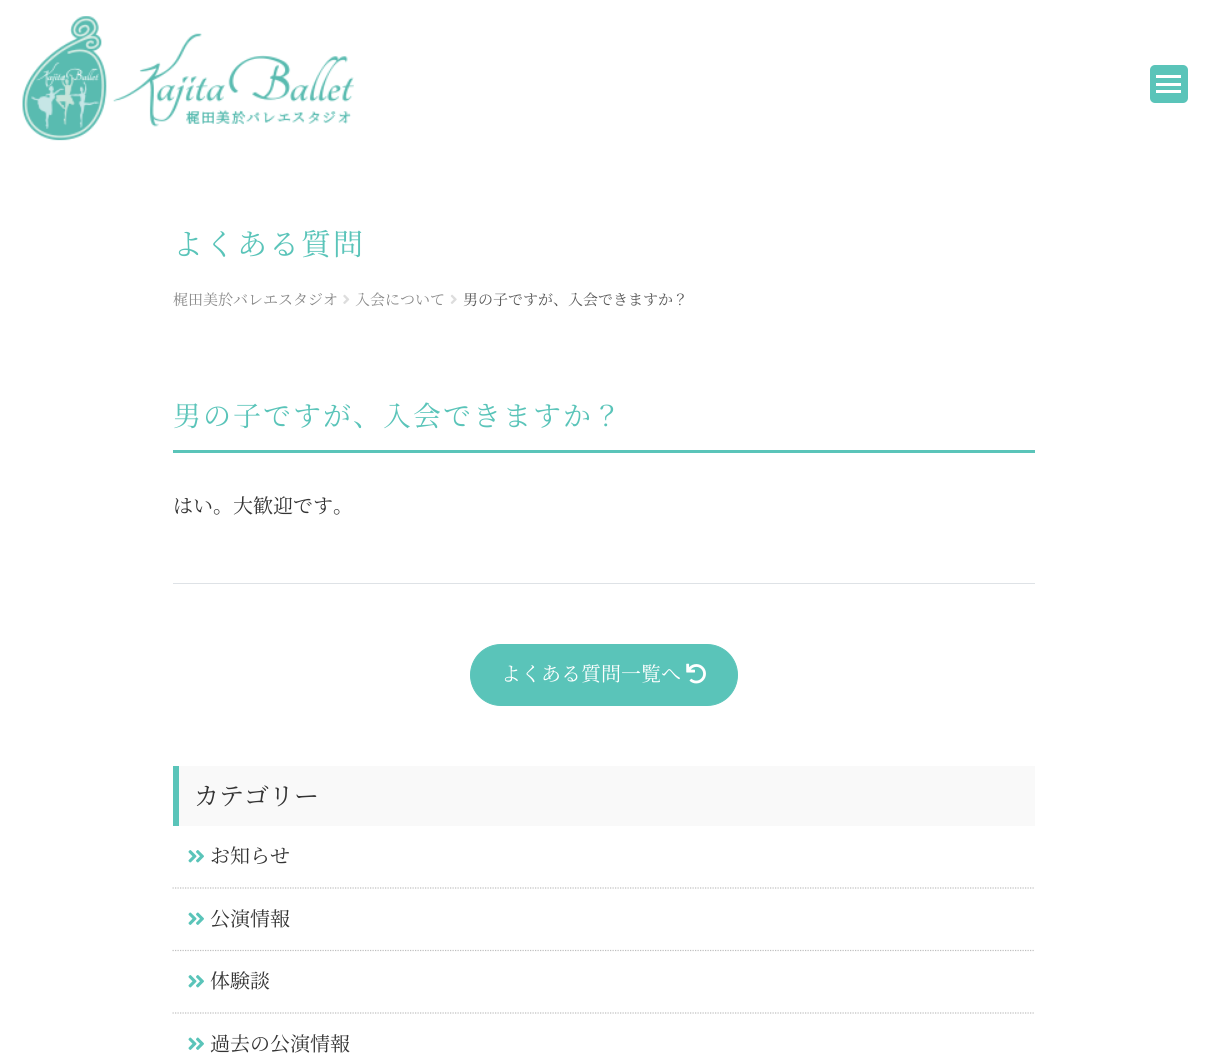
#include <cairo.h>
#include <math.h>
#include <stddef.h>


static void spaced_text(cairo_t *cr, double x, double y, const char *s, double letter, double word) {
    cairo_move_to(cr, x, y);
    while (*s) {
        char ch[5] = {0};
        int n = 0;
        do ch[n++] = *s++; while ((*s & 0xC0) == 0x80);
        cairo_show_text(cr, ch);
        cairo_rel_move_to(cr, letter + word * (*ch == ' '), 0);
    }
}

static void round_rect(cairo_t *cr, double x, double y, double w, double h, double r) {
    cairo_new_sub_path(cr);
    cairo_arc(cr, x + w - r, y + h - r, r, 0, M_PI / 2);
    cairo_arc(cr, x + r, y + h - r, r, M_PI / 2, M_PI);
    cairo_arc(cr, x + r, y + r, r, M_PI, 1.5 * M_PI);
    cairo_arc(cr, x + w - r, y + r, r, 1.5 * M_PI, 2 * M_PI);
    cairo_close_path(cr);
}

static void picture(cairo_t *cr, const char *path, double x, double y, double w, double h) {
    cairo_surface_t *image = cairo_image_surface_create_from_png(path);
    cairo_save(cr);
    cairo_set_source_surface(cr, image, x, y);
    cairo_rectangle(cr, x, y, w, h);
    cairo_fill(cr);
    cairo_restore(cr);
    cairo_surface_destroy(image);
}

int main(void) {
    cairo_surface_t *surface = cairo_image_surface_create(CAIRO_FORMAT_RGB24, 1207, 1057);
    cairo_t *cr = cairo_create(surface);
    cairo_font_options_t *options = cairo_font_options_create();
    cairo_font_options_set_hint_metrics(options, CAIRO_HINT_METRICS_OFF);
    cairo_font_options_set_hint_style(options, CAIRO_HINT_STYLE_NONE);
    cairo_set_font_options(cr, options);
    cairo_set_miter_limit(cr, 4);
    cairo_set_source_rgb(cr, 1, 1, 1);
    cairo_paint(cr);
    picture(cr, "img1.png", 22, 16, 332, 125);
    cairo_set_source_rgb(cr, 0.353, 0.769, 0.725);
    round_rect(cr, 1150, 65, 38, 38, 5);
    cairo_fill(cr);
    cairo_set_source_rgb(cr, 1, 1, 1);
    cairo_rectangle(cr, 1156, 75, 25, 3);
    cairo_fill(cr);
    cairo_rectangle(cr, 1156, 83, 25, 3);
    cairo_fill(cr);
    cairo_rectangle(cr, 1156, 90, 25, 3);
    cairo_fill(cr);
    cairo_select_font_face(cr, "Noto Serif JP ExtraLight", CAIRO_FONT_SLANT_NORMAL, CAIRO_FONT_WEIGHT_NORMAL);
    cairo_set_font_size(cr, 30);
    cairo_set_source_rgb(cr, 0.353, 0.769, 0.725);
    spaced_text(cr, 173, 255, "よくある質問", 2, 0);
    cairo_set_font_size(cr, 15);
    cairo_set_source_rgb(cr, 0.533, 0.533, 0.533);
    cairo_move_to(cr, 173, 305);
    cairo_show_text(cr, "梶田美於バレエスタジオ");
    picture(cr, "img2.png", 343, 294, 7, 10);
    cairo_move_to(cr, 355, 305);
    cairo_show_text(cr, "入会について");
    picture(cr, "img3.png", 450, 294, 7, 10);
    cairo_set_source_rgb(cr, 0.333, 0.333, 0.333);
    cairo_move_to(cr, 463, 305);
    cairo_show_text(cr, "男の子ですが、入会できますか？");
    cairo_set_source_rgb(cr, 0.353, 0.769, 0.725);
    cairo_rectangle(cr, 173, 450, 862, 3);
    cairo_fill(cr);
    cairo_set_font_size(cr, 28);
    spaced_text(cr, 173, 426, "男の子ですが、入会できますか？", 2, 0);
    cairo_set_font_size(cr, 20);
    cairo_set_source_rgb(cr, 0.2, 0.2, 0.2);
    cairo_move_to(cr, 173, 513);
    cairo_show_text(cr, "はい。大歓迎です。");
    cairo_set_source_rgb(cr, 0.871, 0.886, 0.902);
    cairo_rectangle(cr, 173, 583, 862, 1);
    cairo_fill(cr);
    cairo_set_source_rgb(cr, 0.353, 0.769, 0.725);
    round_rect(cr, 470.5, 644.5, 267, 61, 30.5);
    cairo_fill_preserve(cr);
    cairo_set_line_width(cr, 1);
    cairo_stroke(cr);
    cairo_set_source_rgb(cr, 1, 1, 1);
    cairo_move_to(cr, 501, 681);
    cairo_show_text(cr, "よくある質問一覧へ");
    picture(cr, "img4.png", 686, 663, 20, 21);
    cairo_set_source_rgb(cr, 0.976, 0.976, 0.976);
    cairo_rectangle(cr, 179, 766, 856, 60);
    cairo_fill(cr);
    cairo_set_source_rgb(cr, 0.353, 0.769, 0.725);
    cairo_rectangle(cr, 173, 766, 6, 60);
    cairo_fill(cr);
    cairo_set_font_size(cr, 25);
    cairo_set_source_rgb(cr, 0.2, 0.2, 0.2);
    cairo_move_to(cr, 194, 805);
    cairo_show_text(cr, "カテゴリー");
    cairo_new_path(cr);
    cairo_move_to(cr, 172.5, 888);
    cairo_line_to(cr, 1035, 888);
    cairo_set_source_rgb(cr, 0.749, 0.749, 0.749);
    cairo_set_line_width(cr, 1.2);
    cairo_set_dash(cr, (double[]){1.25, 1.25}, 2, 0);
    cairo_stroke(cr);
    picture(cr, "img5.png", 188, 850, 16, 13);
    cairo_set_font_size(cr, 20);
    cairo_set_source_rgb(cr, 0.2, 0.2, 0.2);
    cairo_move_to(cr, 210, 863);
    cairo_show_text(cr, "お知らせ");
    cairo_new_path(cr);
    cairo_move_to(cr, 172.5, 950.5);
    cairo_line_to(cr, 1035, 950.5);
    cairo_set_source_rgb(cr, 0.749, 0.749, 0.749);
    cairo_stroke(cr);
    picture(cr, "img6.png", 188, 912, 16, 13);
    cairo_set_source_rgb(cr, 0.2, 0.2, 0.2);
    cairo_move_to(cr, 210, 926);
    cairo_show_text(cr, "公演情報");
    cairo_new_path(cr);
    cairo_move_to(cr, 172.5, 1013);
    cairo_line_to(cr, 1035, 1013);
    cairo_set_source_rgb(cr, 0.749, 0.749, 0.749);
    cairo_stroke(cr);
    picture(cr, "img5.png", 188, 975, 16, 13);
    cairo_set_source_rgb(cr, 0.2, 0.2, 0.2);
    cairo_move_to(cr, 210, 988);
    cairo_show_text(cr, "体験談");
    picture(cr, "img6.png", 188, 1037, 16, 13);
    cairo_move_to(cr, 210, 1051);
    cairo_show_text(cr, "過去の公演情報");
    cairo_surface_write_to_png(surface, "page.png");
    cairo_font_options_destroy(options);
    cairo_destroy(cr);
    cairo_surface_destroy(surface);
    return 0;
}
